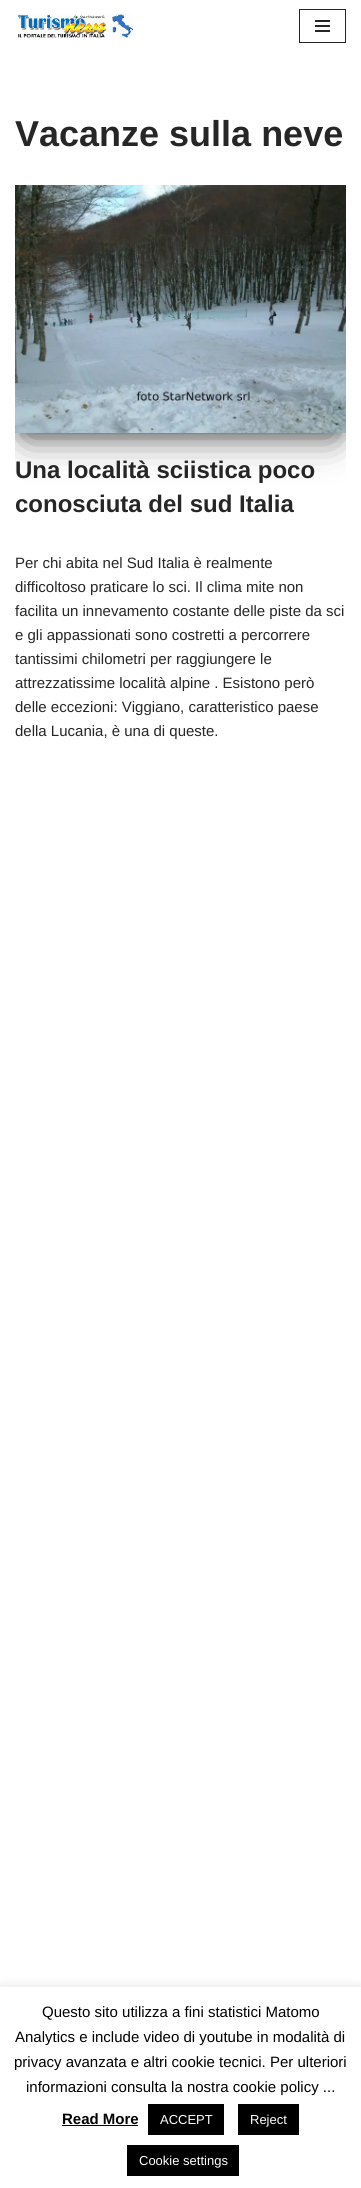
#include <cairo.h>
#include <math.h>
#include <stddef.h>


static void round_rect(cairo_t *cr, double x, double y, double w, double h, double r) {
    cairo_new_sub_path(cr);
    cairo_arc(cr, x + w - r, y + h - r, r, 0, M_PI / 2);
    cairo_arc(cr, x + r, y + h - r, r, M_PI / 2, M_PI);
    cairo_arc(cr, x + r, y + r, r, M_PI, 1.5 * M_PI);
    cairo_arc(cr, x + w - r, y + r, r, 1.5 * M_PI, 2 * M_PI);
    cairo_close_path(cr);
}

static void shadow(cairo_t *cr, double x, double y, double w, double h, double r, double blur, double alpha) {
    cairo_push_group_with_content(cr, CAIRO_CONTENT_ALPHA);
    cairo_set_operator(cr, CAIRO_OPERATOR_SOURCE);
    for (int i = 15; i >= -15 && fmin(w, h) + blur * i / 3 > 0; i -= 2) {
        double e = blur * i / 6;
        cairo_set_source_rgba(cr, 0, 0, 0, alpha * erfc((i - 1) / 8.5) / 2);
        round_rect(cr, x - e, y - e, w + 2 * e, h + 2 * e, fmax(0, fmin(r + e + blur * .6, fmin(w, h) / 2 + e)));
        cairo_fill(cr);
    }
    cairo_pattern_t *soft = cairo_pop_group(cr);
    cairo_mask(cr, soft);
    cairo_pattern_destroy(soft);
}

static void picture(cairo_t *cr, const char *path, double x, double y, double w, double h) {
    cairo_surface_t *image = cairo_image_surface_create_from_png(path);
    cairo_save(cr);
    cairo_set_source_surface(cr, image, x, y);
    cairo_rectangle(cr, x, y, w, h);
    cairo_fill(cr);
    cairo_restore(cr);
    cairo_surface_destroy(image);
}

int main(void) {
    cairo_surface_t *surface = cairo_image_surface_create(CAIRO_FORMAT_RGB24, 361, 2188);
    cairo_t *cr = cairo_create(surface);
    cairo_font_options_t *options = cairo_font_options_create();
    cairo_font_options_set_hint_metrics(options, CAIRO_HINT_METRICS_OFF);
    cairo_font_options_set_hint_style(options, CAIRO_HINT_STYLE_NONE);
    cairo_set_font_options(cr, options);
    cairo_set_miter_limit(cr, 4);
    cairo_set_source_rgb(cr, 1, 1, 1);
    cairo_paint(cr);
    picture(cr, "img1.png", 17, 14, 116, 24);
    cairo_rectangle(cr, 299.5, 9.5, 46, 33);
    cairo_set_source_rgb(cr, 0.153, 0.149, 0.149);
    cairo_set_line_width(cr, 1);
    cairo_stroke(cr);
    cairo_rectangle(cr, 315, 20, 15, 2);
    cairo_fill(cr);
    cairo_rectangle(cr, 315, 25, 15, 2);
    cairo_fill(cr);
    cairo_rectangle(cr, 315, 30, 15, 2);
    cairo_fill(cr);
    cairo_select_font_face(cr, "Liberation Sans", CAIRO_FONT_SLANT_NORMAL, CAIRO_FONT_WEIGHT_BOLD);
    cairo_set_font_size(cr, 36);
    cairo_move_to(cr, 15, 146);
    cairo_show_text(cr, "Vacanze sulla neve");
    cairo_save(cr);
    cairo_rectangle(cr, 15, 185, 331, 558);
    cairo_clip(cr);
    cairo_set_source_rgb(cr, 0, 0, 0);
    shadow(cr, 20, 198, 321, 238, 0, 5, 0.2);
    shadow(cr, 15, 189, 331, 248, 0, 12.5, 0.12);
    shadow(cr, 27, 213, 307, 224, 0, 19, 0.56);
    cairo_restore(cr);
    picture(cr, "img2.png", 15, 185, 331, 248);
    cairo_set_font_size(cr, 24);
    cairo_move_to(cr, 15, 478);
    cairo_show_text(cr, "Una località sciistica poco");
    cairo_move_to(cr, 15, 512);
    cairo_show_text(cr, "conosciuta del sud Italia");
    cairo_select_font_face(cr, "Liberation Sans", CAIRO_FONT_SLANT_NORMAL, CAIRO_FONT_WEIGHT_NORMAL);
    cairo_set_font_size(cr, 15);
    cairo_move_to(cr, 15, 568);
    cairo_show_text(cr, "Per chi abita nel Sud Italia è realmente");
    cairo_move_to(cr, 15, 592);
    cairo_show_text(cr, "difficoltoso praticare lo sci. Il clima mite non");
    cairo_move_to(cr, 15, 616);
    cairo_show_text(cr, "facilita un innevamento costante delle piste da sci");
    cairo_move_to(cr, 15, 640);
    cairo_show_text(cr, "e gli appassionati sono costretti a percorrere");
    cairo_move_to(cr, 15, 664);
    cairo_show_text(cr, "tantissimi chilometri per raggiungere le");
    cairo_move_to(cr, 15, 688);
    cairo_show_text(cr, "attrezzatissime località alpine . Esistono però");
    cairo_move_to(cr, 15, 712);
    cairo_show_text(cr, "delle eccezioni: Viggiano, caratteristico paese");
    cairo_move_to(cr, 15, 736);
    cairo_show_text(cr, "della Lucania, è una di queste.");
    cairo_set_source_rgb(cr, 0.675, 0.671, 0.671);
    shadow(cr, 0, 1986, 361, 201, 0, 5, 0.3);
    cairo_set_source_rgb(cr, 1, 1, 1);
    cairo_rectangle(cr, 0, 1987, 361, 201);
    cairo_fill(cr);
    cairo_set_source_rgb(cr, 0, 0, 0);
    cairo_move_to(cr, 42, 2017);
    cairo_show_text(cr, "Questo sito utilizza a fini statistici Matomo");
    cairo_move_to(cr, 15, 2042);
    cairo_show_text(cr, "Analytics e include video di youtube in modalità di");
    cairo_move_to(cr, 14, 2067);
    cairo_show_text(cr, "privacy avanzata e altri cookie tecnici. Per ulteriori");
    cairo_move_to(cr, 26, 2092);
    cairo_show_text(cr, "informazioni consulta la nostra cookie policy ...");
    cairo_select_font_face(cr, "Liberation Sans", CAIRO_FONT_SLANT_NORMAL, CAIRO_FONT_WEIGHT_BOLD);
    cairo_move_to(cr, 62, 2124);
    cairo_show_text(cr, "Read More");
    cairo_rectangle(cr, 62, 2125, 76, 1);
    cairo_fill(cr);
    cairo_rectangle(cr, 148, 2104, 76, 31);
    cairo_fill(cr);
    cairo_select_font_face(cr, "Liberation Sans", CAIRO_FONT_SLANT_NORMAL, CAIRO_FONT_WEIGHT_NORMAL);
    cairo_set_font_size(cr, 13);
    cairo_set_source_rgb(cr, 1, 1, 1);
    cairo_move_to(cr, 160, 2124);
    cairo_show_text(cr, "ACCEPT");
    cairo_set_source_rgb(cr, 0, 0, 0);
    cairo_rectangle(cr, 238, 2104, 61, 31);
    cairo_fill(cr);
    cairo_set_source_rgb(cr, 1, 1, 1);
    cairo_move_to(cr, 250, 2124);
    cairo_show_text(cr, "Reject");
    cairo_set_source_rgb(cr, 0, 0, 0);
    cairo_rectangle(cr, 127, 2145, 112, 31);
    cairo_fill(cr);
    cairo_set_source_rgb(cr, 1, 1, 1);
    cairo_move_to(cr, 139, 2165);
    cairo_show_text(cr, "Cookie settings");
    cairo_surface_write_to_png(surface, "page.png");
    cairo_font_options_destroy(options);
    cairo_destroy(cr);
    cairo_surface_destroy(surface);
    return 0;
}
